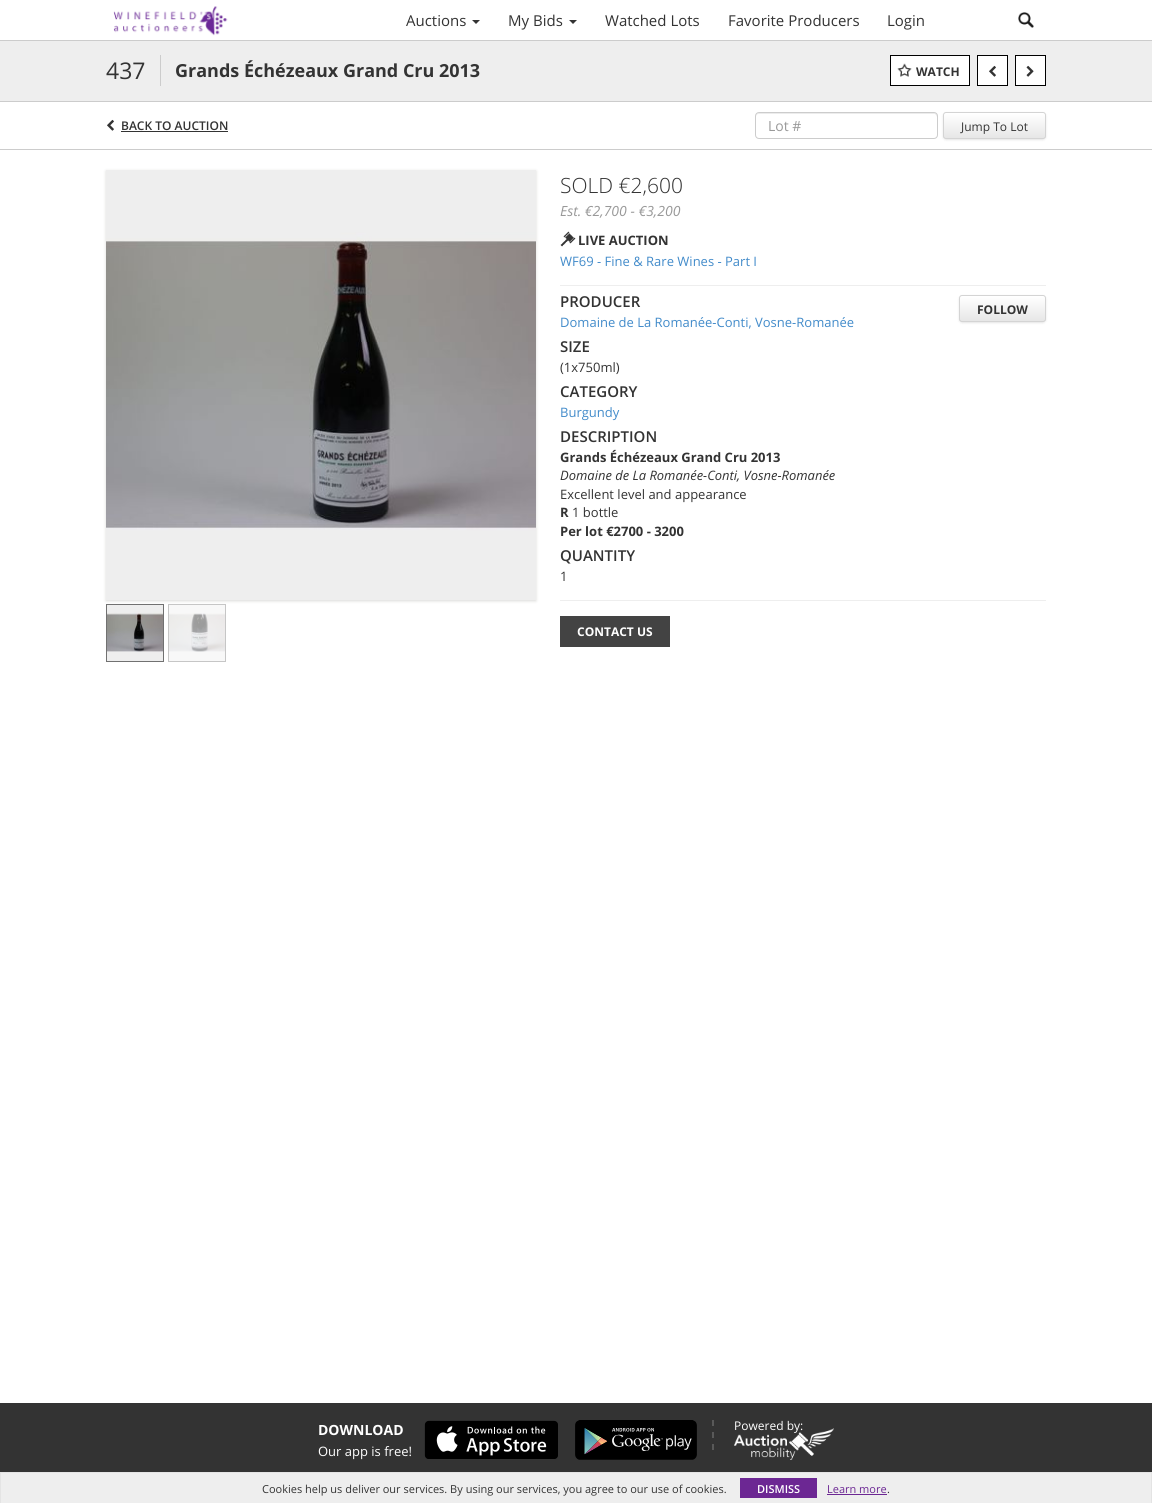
#include <cairo.h>
#include <math.h>
#include <stddef.h>


static void round_rect(cairo_t *cr, double x, double y, double w, double h, double r) {
    cairo_new_sub_path(cr);
    cairo_arc(cr, x + w - r, y + h - r, r, 0, M_PI / 2);
    cairo_arc(cr, x + r, y + h - r, r, M_PI / 2, M_PI);
    cairo_arc(cr, x + r, y + r, r, M_PI, 1.5 * M_PI);
    cairo_arc(cr, x + w - r, y + r, r, 1.5 * M_PI, 2 * M_PI);
    cairo_close_path(cr);
}

static void shadow(cairo_t *cr, double x, double y, double w, double h, double r, double blur, double alpha) {
    cairo_push_group_with_content(cr, CAIRO_CONTENT_ALPHA);
    cairo_set_operator(cr, CAIRO_OPERATOR_SOURCE);
    for (int i = 15; i >= -15 && fmin(w, h) + blur * i / 3 > 0; i -= 2) {
        double e = blur * i / 6;
        cairo_set_source_rgba(cr, 0, 0, 0, alpha * erfc((i - 1) / 8.5) / 2);
        round_rect(cr, x - e, y - e, w + 2 * e, h + 2 * e, fmax(0, fmin(r + e + blur * .6, fmin(w, h) / 2 + e)));
        cairo_fill(cr);
    }
    cairo_pattern_t *soft = cairo_pop_group(cr);
    cairo_mask(cr, soft);
    cairo_pattern_destroy(soft);
}

static void picture(cairo_t *cr, const char *path, double x, double y, double w, double h) {
    cairo_surface_t *image = cairo_image_surface_create_from_png(path);
    cairo_save(cr);
    cairo_set_source_surface(cr, image, x, y);
    cairo_rectangle(cr, x, y, w, h);
    cairo_fill(cr);
    cairo_restore(cr);
    cairo_surface_destroy(image);
}

int main(void) {
    cairo_surface_t *surface = cairo_image_surface_create(CAIRO_FORMAT_RGB24, 1152, 1503);
    cairo_t *cr = cairo_create(surface);
    cairo_font_options_t *options = cairo_font_options_create();
    cairo_font_options_set_hint_metrics(options, CAIRO_HINT_METRICS_OFF);
    cairo_font_options_set_hint_style(options, CAIRO_HINT_STYLE_NONE);
    cairo_set_font_options(cr, options);
    cairo_set_miter_limit(cr, 4);
    cairo_pattern_t *gradient;
    cairo_set_source_rgb(cr, 1, 1, 1);
    cairo_paint(cr);
    picture(cr, "img1.png", 113, 6, 115, 30);
    cairo_select_font_face(cr, "Open Sans", CAIRO_FONT_SLANT_NORMAL, CAIRO_FONT_WEIGHT_NORMAL);
    cairo_set_font_size(cr, 15);
    cairo_set_source_rgb(cr, 0.2, 0.2, 0.2);
    cairo_move_to(cr, 406, 26);
    cairo_show_text(cr, "Auctions");
    cairo_new_path(cr);
    cairo_move_to(cr, 472, 20);
    cairo_line_to(cr, 480, 20);
    cairo_line_to(cr, 476, 24);
    cairo_close_path(cr);
    cairo_fill(cr);
    cairo_move_to(cr, 508, 26);
    cairo_show_text(cr, "My Bids");
    cairo_new_path(cr);
    cairo_move_to(cr, 569, 20);
    cairo_line_to(cr, 577, 20);
    cairo_line_to(cr, 573, 24);
    cairo_close_path(cr);
    cairo_fill(cr);
    cairo_move_to(cr, 605, 26);
    cairo_show_text(cr, "Watched Lots");
    cairo_move_to(cr, 728, 26);
    cairo_show_text(cr, "Favorite Producers");
    cairo_move_to(cr, 887, 26);
    cairo_show_text(cr, "Login");
    picture(cr, "img2.png", 1018, 12, 16, 16);
    cairo_set_source_rgb(cr, 0.8, 0.8, 0.8);
    cairo_rectangle(cr, 0, 40, 1152, 1);
    cairo_fill(cr);
    cairo_set_source_rgb(cr, 0.933, 0.933, 0.933);
    cairo_rectangle(cr, 0, 41, 1152, 60);
    cairo_fill(cr);
    cairo_set_source_rgb(cr, 0.8, 0.8, 0.8);
    cairo_rectangle(cr, 0, 101, 1152, 1);
    cairo_fill(cr);
    cairo_set_font_size(cr, 23);
    cairo_set_source_rgb(cr, 0.2, 0.2, 0.2);
    cairo_move_to(cr, 106, 79);
    cairo_show_text(cr, "437");
    cairo_set_source_rgb(cr, 0.8, 0.8, 0.8);
    cairo_rectangle(cr, 160, 55, 1, 31);
    cairo_fill(cr);
    cairo_select_font_face(cr, "Open Sans", CAIRO_FONT_SLANT_NORMAL, CAIRO_FONT_WEIGHT_BOLD);
    cairo_set_font_size(cr, 18);
    cairo_set_source_rgb(cr, 0.2, 0.2, 0.2);
    cairo_move_to(cr, 175, 77);
    cairo_show_text(cr, "Grands Échézeaux Grand Cru 2013");
    cairo_set_source_rgb(cr, 1, 1, 1);
    cairo_rectangle(cr, 890.5, 55.5, 79, 30);
    cairo_fill_preserve(cr);
    cairo_set_source_rgb(cr, 0, 0, 0);
    cairo_set_line_width(cr, 1);
    cairo_stroke(cr);
    picture(cr, "img3.png", 897, 63, 15, 14);
    cairo_set_font_size(cr, 12);
    cairo_set_source_rgb(cr, 0.2, 0.2, 0.2);
    cairo_move_to(cr, 916, 76);
    cairo_show_text(cr, "WATCH");
    cairo_set_source_rgb(cr, 1, 1, 1);
    cairo_rectangle(cr, 977.5, 55.5, 30, 30);
    cairo_fill_preserve(cr);
    cairo_set_source_rgb(cr, 0, 0, 0);
    cairo_stroke(cr);
    picture(cr, "img4.png", 989, 65, 7, 12);
    cairo_set_source_rgb(cr, 1, 1, 1);
    cairo_rectangle(cr, 1015.5, 55.5, 30, 30);
    cairo_fill_preserve(cr);
    cairo_set_source_rgb(cr, 0, 0, 0);
    cairo_stroke(cr);
    picture(cr, "img5.png", 1026, 65, 8, 12);
    picture(cr, "img4.png", 107, 119, 7, 12);
    cairo_select_font_face(cr, "Open Sans SemiBold", CAIRO_FONT_SLANT_NORMAL, CAIRO_FONT_WEIGHT_NORMAL);
    cairo_set_source_rgb(cr, 0.2, 0.2, 0.2);
    cairo_move_to(cr, 121, 130);
    cairo_show_text(cr, "BACK TO AUCTION");
    cairo_rectangle(cr, 121, 131, 107, 1);
    cairo_fill(cr);
    cairo_set_source_rgb(cr, 0.925, 0.925, 0.925);
    cairo_new_path(cr);
    cairo_move_to(cr, 759, 114);
    cairo_line_to(cr, 935, 114);
    cairo_line_to(cr, 936, 115);
    cairo_line_to(cr, 937, 117);
    cairo_line_to(cr, 937, 116);
    cairo_curve_to(cr, 937, 114, 936, 113, 934, 113);
    cairo_line_to(cr, 759, 113);
    cairo_curve_to(cr, 757, 113, 756, 114, 756, 116);
    cairo_line_to(cr, 756, 117);
    cairo_curve_to(cr, 756, 115, 757, 114, 759, 114);
    cairo_close_path(cr);
    cairo_fill(cr);
    round_rect(cr, 755.5, 112.5, 182, 26, 3.5);
    cairo_set_source_rgb(cr, 0.8, 0.8, 0.8);
    cairo_stroke(cr);
    cairo_select_font_face(cr, "Open Sans", CAIRO_FONT_SLANT_NORMAL, CAIRO_FONT_WEIGHT_NORMAL);
    cairo_set_font_size(cr, 14);
    cairo_set_source_rgb(cr, 0.6, 0.6, 0.6);
    cairo_move_to(cr, 768, 131);
    cairo_show_text(cr, "Lot #");
    cairo_set_source_rgb(cr, 0, 0, 0);
    shadow(cr, 944, 114, 101, 25, 2, 1.5, 0.2);
    cairo_save(cr);
    round_rect(cr, 943, 112, 103, 27, 3);
    cairo_clip(cr);
    gradient = cairo_pattern_create_linear(995, 113, 995, 138);
    cairo_pattern_add_color_stop_rgba(gradient, 0, 1, 1, 1, 1);
    cairo_pattern_add_color_stop_rgba(gradient, 1, 0.902, 0.902, 0.902, 1);
    cairo_set_source(cr, gradient);
    cairo_pattern_destroy(gradient);
    cairo_rectangle(cr, 943, 113, 103, 25);
    cairo_fill(cr);
    cairo_restore(cr);
    cairo_set_source_rgba(cr, 1, 1, 1, 0.4);
    cairo_new_path(cr);
    cairo_move_to(cr, 946, 114);
    cairo_line_to(cr, 1043, 114);
    cairo_curve_to(cr, 1044, 114, 1045, 115, 1045, 116);
    cairo_curve_to(cr, 1045, 115, 1045, 113, 1043, 113);
    cairo_line_to(cr, 962, 113);
    cairo_curve_to(cr, 961, 113, 944, 108, 944, 116);
    cairo_curve_to(cr, 944, 115, 945, 114, 946, 114);
    cairo_close_path(cr);
    cairo_fill(cr);
    round_rect(cr, 943.5, 112.5, 102, 26, 2.5);
    cairo_set_source_rgb(cr, 0.831, 0.831, 0.831);
    cairo_stroke(cr);
    cairo_set_font_size(cr, 12);
    cairo_set_source_rgb(cr, 0.2, 0.2, 0.2);
    cairo_move_to(cr, 961, 131);
    cairo_show_text(cr, "Jump To Lot");
    cairo_set_source_rgb(cr, 0.8, 0.8, 0.8);
    cairo_rectangle(cr, 0, 149, 1152, 1);
    cairo_fill(cr);
    cairo_set_source_rgb(cr, 0.855, 0.851, 0.843);
    shadow(cr, 106, 171, 430, 430, 0, 1.5, 1);
    picture(cr, "img6.png", 106, 170, 430, 430);
    cairo_rectangle(cr, 106.5, 604.5, 57, 57);
    cairo_set_source_rgb(cr, 0.443, 0.443, 0.443);
    cairo_stroke(cr);
    cairo_rectangle(cr, 168.5, 604.5, 57, 57);
    cairo_set_source_rgb(cr, 0.776, 0.776, 0.776);
    cairo_stroke(cr);
    picture(cr, "img7.png", 107, 605, 56, 56);
    picture(cr, "img8.png", 169, 605, 56, 56);
    cairo_select_font_face(cr, "Open Sans Light", CAIRO_FONT_SLANT_NORMAL, CAIRO_FONT_WEIGHT_NORMAL);
    cairo_set_font_size(cr, 21);
    cairo_set_source_rgb(cr, 0.2, 0.2, 0.2);
    cairo_move_to(cr, 560, 193);
    cairo_show_text(cr, "SOLD €2,600");
    cairo_select_font_face(cr, "Open Sans", CAIRO_FONT_SLANT_ITALIC, CAIRO_FONT_WEIGHT_NORMAL);
    cairo_set_font_size(cr, 14);
    cairo_set_source_rgb(cr, 0.6, 0.6, 0.6);
    cairo_move_to(cr, 560, 216);
    cairo_show_text(cr, "Est. €2,700 - €3,200");
    picture(cr, "img9.png", 560, 231, 16, 16);
    cairo_select_font_face(cr, "Open Sans", CAIRO_FONT_SLANT_NORMAL, CAIRO_FONT_WEIGHT_BOLD);
    cairo_set_font_size(cr, 13);
    cairo_set_source_rgb(cr, 0.2, 0.2, 0.2);
    cairo_move_to(cr, 578, 245);
    cairo_show_text(cr, "LIVE AUCTION");
    cairo_select_font_face(cr, "Open Sans", CAIRO_FONT_SLANT_NORMAL, CAIRO_FONT_WEIGHT_NORMAL);
    cairo_set_source_rgb(cr, 0.259, 0.545, 0.792);
    cairo_move_to(cr, 560, 266);
    cairo_show_text(cr, "WF69 - Fine & Rare Wines - Part I");
    cairo_set_source_rgb(cr, 0.933, 0.933, 0.933);
    cairo_rectangle(cr, 560, 285, 486, 1);
    cairo_fill(cr);
    cairo_select_font_face(cr, "Open Sans SemiBold", CAIRO_FONT_SLANT_NORMAL, CAIRO_FONT_WEIGHT_NORMAL);
    cairo_set_font_size(cr, 15);
    cairo_set_source_rgb(cr, 0.2, 0.2, 0.2);
    cairo_move_to(cr, 560, 307);
    cairo_show_text(cr, "PRODUCER");
    cairo_set_source_rgb(cr, 0, 0, 0);
    shadow(cr, 960, 297, 85, 25, 2, 1.5, 0.2);
    cairo_save(cr);
    round_rect(cr, 959, 295, 87, 27, 3);
    cairo_clip(cr);
    gradient = cairo_pattern_create_linear(1003, 296, 1003, 321);
    cairo_pattern_add_color_stop_rgba(gradient, 0, 1, 1, 1, 1);
    cairo_pattern_add_color_stop_rgba(gradient, 1, 0.902, 0.902, 0.902, 1);
    cairo_set_source(cr, gradient);
    cairo_pattern_destroy(gradient);
    cairo_rectangle(cr, 959, 296, 87, 25);
    cairo_fill(cr);
    cairo_restore(cr);
    cairo_set_source_rgba(cr, 1, 1, 1, 0.4);
    cairo_new_path(cr);
    cairo_move_to(cr, 962, 297);
    cairo_line_to(cr, 1043, 297);
    cairo_curve_to(cr, 1044, 297, 1045, 298, 1045, 299);
    cairo_curve_to(cr, 1045, 292, 1032, 296, 1030, 296);
    cairo_line_to(cr, 976, 296);
    cairo_curve_to(cr, 973, 296, 960, 292, 960, 299);
    cairo_curve_to(cr, 960, 298, 961, 297, 962, 297);
    cairo_close_path(cr);
    cairo_fill(cr);
    round_rect(cr, 959.5, 295.5, 86, 26, 2.5);
    cairo_set_source_rgb(cr, 0.831, 0.831, 0.831);
    cairo_stroke(cr);
    cairo_select_font_face(cr, "Open Sans", CAIRO_FONT_SLANT_NORMAL, CAIRO_FONT_WEIGHT_BOLD);
    cairo_set_font_size(cr, 12);
    cairo_set_source_rgb(cr, 0.2, 0.2, 0.2);
    cairo_move_to(cr, 977, 314);
    cairo_show_text(cr, "FOLLOW");
    cairo_select_font_face(cr, "Open Sans", CAIRO_FONT_SLANT_NORMAL, CAIRO_FONT_WEIGHT_NORMAL);
    cairo_set_font_size(cr, 13);
    cairo_set_source_rgb(cr, 0.259, 0.545, 0.792);
    cairo_move_to(cr, 560, 327);
    cairo_show_text(cr, "Domaine de La Romanée-Conti, Vosne-Romanée");
    cairo_select_font_face(cr, "Open Sans SemiBold", CAIRO_FONT_SLANT_NORMAL, CAIRO_FONT_WEIGHT_NORMAL);
    cairo_set_font_size(cr, 15);
    cairo_set_source_rgb(cr, 0.2, 0.2, 0.2);
    cairo_move_to(cr, 560, 352);
    cairo_show_text(cr, "SIZE");
    cairo_select_font_face(cr, "Open Sans", CAIRO_FONT_SLANT_NORMAL, CAIRO_FONT_WEIGHT_NORMAL);
    cairo_set_font_size(cr, 13);
    cairo_move_to(cr, 560, 372);
    cairo_show_text(cr, "(1x750ml)");
    cairo_select_font_face(cr, "Open Sans SemiBold", CAIRO_FONT_SLANT_NORMAL, CAIRO_FONT_WEIGHT_NORMAL);
    cairo_set_font_size(cr, 15);
    cairo_move_to(cr, 560, 397);
    cairo_show_text(cr, "CATEGORY");
    cairo_select_font_face(cr, "Open Sans", CAIRO_FONT_SLANT_NORMAL, CAIRO_FONT_WEIGHT_NORMAL);
    cairo_set_font_size(cr, 13);
    cairo_set_source_rgb(cr, 0.259, 0.545, 0.792);
    cairo_move_to(cr, 560, 417);
    cairo_show_text(cr, "Burgundy");
    cairo_select_font_face(cr, "Open Sans SemiBold", CAIRO_FONT_SLANT_NORMAL, CAIRO_FONT_WEIGHT_NORMAL);
    cairo_set_font_size(cr, 15);
    cairo_set_source_rgb(cr, 0.2, 0.2, 0.2);
    cairo_move_to(cr, 560, 442);
    cairo_show_text(cr, "DESCRIPTION");
    cairo_select_font_face(cr, "Open Sans", CAIRO_FONT_SLANT_NORMAL, CAIRO_FONT_WEIGHT_BOLD);
    cairo_set_font_size(cr, 13);
    cairo_move_to(cr, 560, 462);
    cairo_show_text(cr, "Grands Échézeaux Grand Cru 2013");
    cairo_select_font_face(cr, "Open Sans", CAIRO_FONT_SLANT_ITALIC, CAIRO_FONT_WEIGHT_NORMAL);
    cairo_move_to(cr, 560, 480);
    cairo_show_text(cr, "Domaine de La Romanée-Conti, Vosne-Romanée");
    cairo_select_font_face(cr, "Open Sans", CAIRO_FONT_SLANT_NORMAL, CAIRO_FONT_WEIGHT_NORMAL);
    cairo_move_to(cr, 560, 499);
    cairo_show_text(cr, "Excellent level and appearance");
    cairo_select_font_face(cr, "Open Sans", CAIRO_FONT_SLANT_NORMAL, CAIRO_FONT_WEIGHT_BOLD);
    cairo_move_to(cr, 560, 517);
    cairo_show_text(cr, "R");
    cairo_select_font_face(cr, "Open Sans", CAIRO_FONT_SLANT_NORMAL, CAIRO_FONT_WEIGHT_NORMAL);
    cairo_move_to(cr, 572, 517);
    cairo_show_text(cr, "1 bottle");
    cairo_select_font_face(cr, "Open Sans", CAIRO_FONT_SLANT_NORMAL, CAIRO_FONT_WEIGHT_BOLD);
    cairo_move_to(cr, 560, 536);
    cairo_show_text(cr, "Per lot €2700 - 3200");
    cairo_select_font_face(cr, "Open Sans SemiBold", CAIRO_FONT_SLANT_NORMAL, CAIRO_FONT_WEIGHT_NORMAL);
    cairo_set_font_size(cr, 15);
    cairo_move_to(cr, 560, 561);
    cairo_show_text(cr, "QUANTITY");
    cairo_select_font_face(cr, "Open Sans", CAIRO_FONT_SLANT_NORMAL, CAIRO_FONT_WEIGHT_NORMAL);
    cairo_set_font_size(cr, 13);
    cairo_move_to(cr, 560, 581);
    cairo_show_text(cr, "1");
    cairo_set_source_rgb(cr, 0.933, 0.933, 0.933);
    cairo_rectangle(cr, 560, 600, 486, 1);
    cairo_fill(cr);
    cairo_set_source_rgb(cr, 0.263, 0.263, 0.263);
    cairo_rectangle(cr, 560, 616, 110, 31);
    cairo_fill(cr);
    cairo_select_font_face(cr, "Open Sans", CAIRO_FONT_SLANT_NORMAL, CAIRO_FONT_WEIGHT_BOLD);
    cairo_set_font_size(cr, 12);
    cairo_set_source_rgb(cr, 1, 1, 1);
    cairo_move_to(cr, 577, 636);
    cairo_show_text(cr, "CONTACT US");
    cairo_set_source_rgb(cr, 0.2, 0.2, 0.2);
    cairo_rectangle(cr, 0, 1403, 1152, 69);
    cairo_fill(cr);
    cairo_set_font_size(cr, 14);
    cairo_set_source_rgb(cr, 1, 1, 1);
    cairo_move_to(cr, 318, 1435);
    cairo_show_text(cr, "DOWNLOAD");
    cairo_select_font_face(cr, "Open Sans", CAIRO_FONT_SLANT_NORMAL, CAIRO_FONT_WEIGHT_NORMAL);
    cairo_set_font_size(cr, 13);
    cairo_move_to(cr, 318, 1456);
    cairo_show_text(cr, "Our app is free!");
    picture(cr, "img10.png", 424, 1420, 134, 39);
    picture(cr, "img11.png", 575, 1420, 122, 40);
    cairo_new_path(cr);
    cairo_move_to(cr, 713, 1420);
    cairo_line_to(cr, 713, 1426);
    cairo_move_to(cr, 713, 1432);
    cairo_line_to(cr, 713, 1438);
    cairo_move_to(cr, 713, 1444);
    cairo_line_to(cr, 713, 1450);
    cairo_set_source_rgb(cr, 0.349, 0.349, 0.349);
    cairo_set_line_width(cr, 2);
    cairo_stroke(cr);
    cairo_set_font_size(cr, 12);
    cairo_set_source_rgb(cr, 1, 1, 1);
    cairo_move_to(cr, 734, 1430);
    cairo_show_text(cr, "Powered by:");
    picture(cr, "img12.png", 734, 1428, 100, 32);
    cairo_set_source_rgb(cr, 0.933, 0.933, 0.933);
    cairo_rectangle(cr, 1, 1473, 1150, 30);
    cairo_fill(cr);
    cairo_set_source_rgb(cr, 0.894, 0.894, 0.894);
    cairo_rectangle(cr, 0, 1472, 1152, 1);
    cairo_fill(cr);
    cairo_rectangle(cr, 1151, 1472, 1, 31);
    cairo_fill(cr);
    cairo_rectangle(cr, 0, 1472, 1, 31);
    cairo_fill(cr);
    cairo_set_font_size(cr, 11);
    cairo_set_source_rgb(cr, 0.2, 0.2, 0.2);
    cairo_move_to(cr, 262, 1493);
    cairo_show_text(cr, "Cookies help us deliver our services. By using our services, you agree to our use of cookies.");
    cairo_set_source_rgb(cr, 0.424, 0.153, 0.576);
    cairo_rectangle(cr, 740, 1478, 77, 20);
    cairo_fill(cr);
    cairo_select_font_face(cr, "Open Sans SemiBold", CAIRO_FONT_SLANT_NORMAL, CAIRO_FONT_WEIGHT_NORMAL);
    cairo_set_source_rgb(cr, 1, 1, 1);
    cairo_move_to(cr, 757, 1493);
    cairo_show_text(cr, "DISMISS");
    cairo_select_font_face(cr, "Open Sans", CAIRO_FONT_SLANT_NORMAL, CAIRO_FONT_WEIGHT_NORMAL);
    cairo_set_source_rgb(cr, 0.424, 0.153, 0.576);
    cairo_move_to(cr, 827, 1493);
    cairo_show_text(cr, "Learn more");
    cairo_rectangle(cr, 827, 1494, 60, 1);
    cairo_fill(cr);
    cairo_set_source_rgb(cr, 0.2, 0.2, 0.2);
    cairo_move_to(cr, 887, 1493);
    cairo_show_text(cr, ".");
    cairo_surface_write_to_png(surface, "page.png");
    cairo_font_options_destroy(options);
    cairo_destroy(cr);
    cairo_surface_destroy(surface);
    return 0;
}
